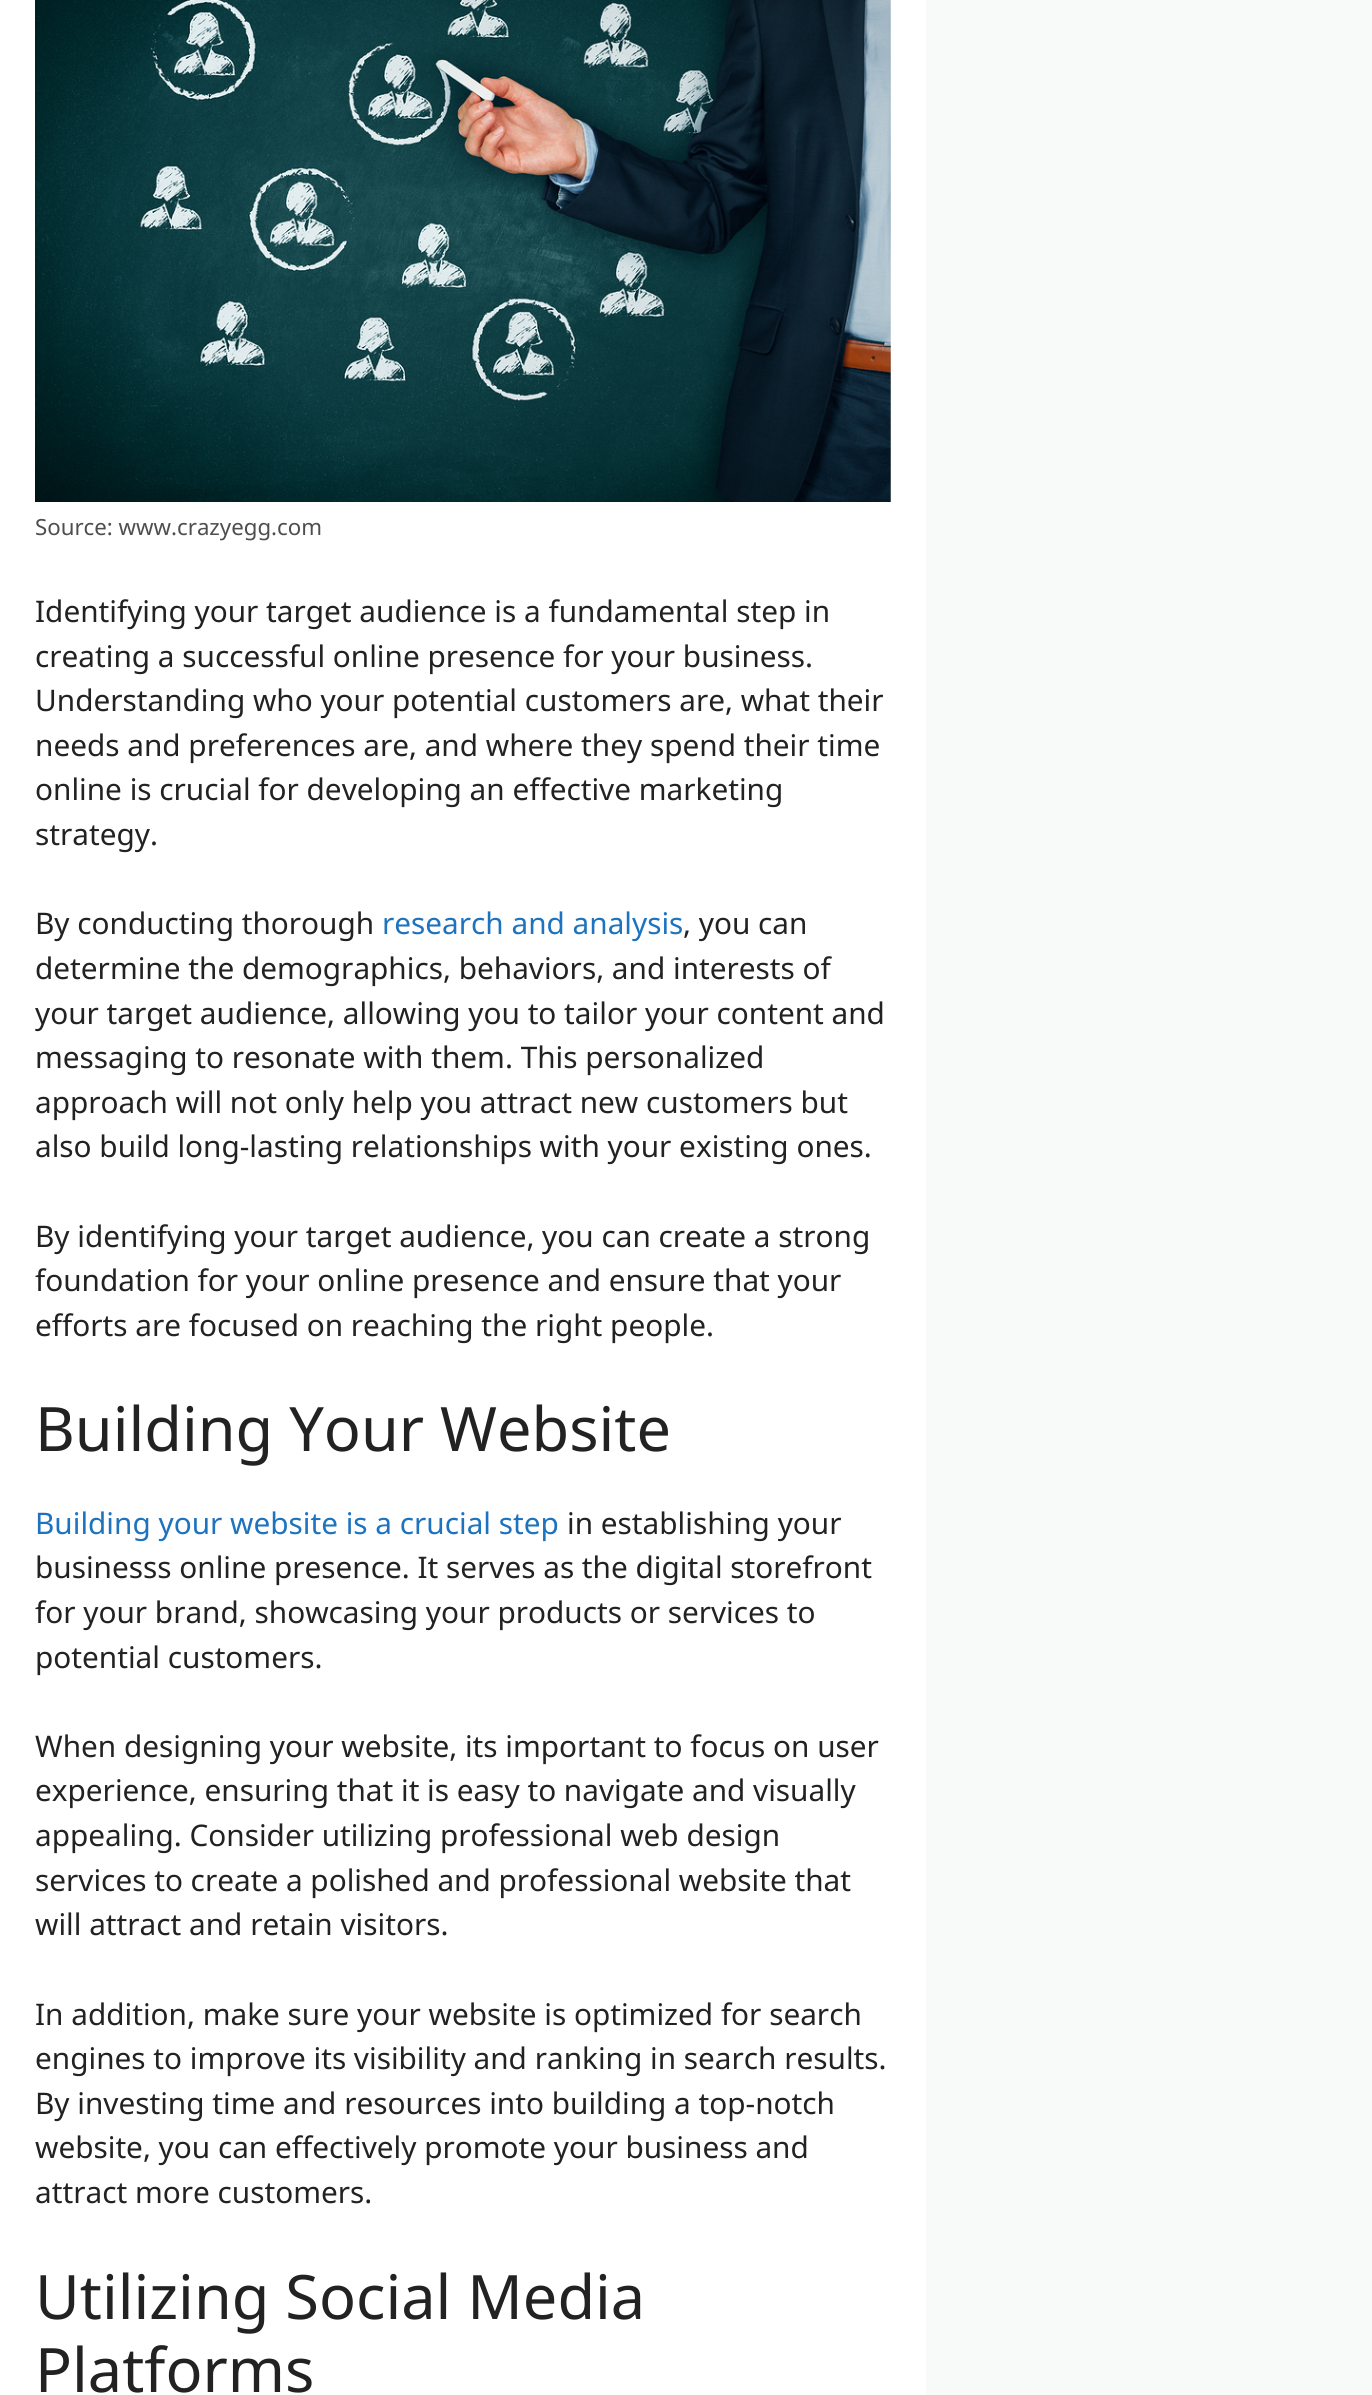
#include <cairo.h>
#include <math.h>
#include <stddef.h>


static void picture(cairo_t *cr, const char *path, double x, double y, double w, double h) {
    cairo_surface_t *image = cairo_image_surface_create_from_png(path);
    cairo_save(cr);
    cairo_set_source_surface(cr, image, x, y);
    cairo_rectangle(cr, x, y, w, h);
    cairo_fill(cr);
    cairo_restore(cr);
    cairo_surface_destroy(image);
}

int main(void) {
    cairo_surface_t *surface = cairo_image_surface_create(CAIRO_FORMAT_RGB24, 1372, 2395);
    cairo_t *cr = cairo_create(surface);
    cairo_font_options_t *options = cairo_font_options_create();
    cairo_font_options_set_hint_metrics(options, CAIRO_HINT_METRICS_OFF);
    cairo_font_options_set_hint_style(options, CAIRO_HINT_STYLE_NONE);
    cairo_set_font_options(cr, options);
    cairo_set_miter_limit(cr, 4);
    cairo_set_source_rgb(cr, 0.969, 0.973, 0.976);
    cairo_paint(cr);
    cairo_set_source_rgb(cr, 1, 1, 1);
    cairo_rectangle(cr, 0, 0, 926, 2395);
    cairo_fill(cr);
    picture(cr, "img1.png", 35, 0, 856, 502);
    cairo_select_font_face(cr, "Noto Sans", CAIRO_FONT_SLANT_NORMAL, CAIRO_FONT_WEIGHT_NORMAL);
    cairo_set_font_size(cr, 22.25);
    cairo_set_source_rgb(cr, 0.306, 0.306, 0.306);
    cairo_move_to(cr, 35, 535);
    cairo_show_text(cr, "Source: www.crazyegg.com");
    cairo_set_font_size(cr, 29.75);
    cairo_set_source_rgb(cr, 0.133, 0.133, 0.133);
    cairo_move_to(cr, 35, 622);
    cairo_show_text(cr, "Identifying your target audience is a fundamental step in");
    cairo_move_to(cr, 35, 667);
    cairo_show_text(cr, "creating a successful online presence for your business.");
    cairo_move_to(cr, 35, 711);
    cairo_show_text(cr, "Understanding who your potential customers are, what their");
    cairo_move_to(cr, 35, 756);
    cairo_show_text(cr, "needs and preferences are, and where they spend their time");
    cairo_move_to(cr, 35, 800);
    cairo_show_text(cr, "online is crucial for developing an effective marketing");
    cairo_move_to(cr, 35, 845);
    cairo_show_text(cr, "strategy.");
    cairo_move_to(cr, 35, 934);
    cairo_show_text(cr, "By conducting thorough");
    cairo_set_source_rgb(cr, 0.118, 0.451, 0.745);
    cairo_move_to(cr, 382, 934);
    cairo_show_text(cr, "research and analysis");
    cairo_set_source_rgb(cr, 0.133, 0.133, 0.133);
    cairo_move_to(cr, 683, 934);
    cairo_show_text(cr, ", you can");
    cairo_move_to(cr, 35, 979);
    cairo_show_text(cr, "determine the demographics, behaviors, and interests of");
    cairo_move_to(cr, 35, 1024);
    cairo_show_text(cr, "your target audience, allowing you to tailor your content and");
    cairo_move_to(cr, 35, 1068);
    cairo_show_text(cr, "messaging to resonate with them. This personalized");
    cairo_move_to(cr, 35, 1113);
    cairo_show_text(cr, "approach will not only help you attract new customers but");
    cairo_move_to(cr, 35, 1157);
    cairo_show_text(cr, "also build long-lasting relationships with your existing ones.");
    cairo_move_to(cr, 35, 1247);
    cairo_show_text(cr, "By identifying your target audience, you can create a strong");
    cairo_move_to(cr, 35, 1291);
    cairo_show_text(cr, "foundation for your online presence and ensure that your");
    cairo_move_to(cr, 35, 1336);
    cairo_show_text(cr, "efforts are focused on reaching the right people.");
    cairo_set_font_size(cr, 61.25);
    cairo_move_to(cr, 35, 1451);
    cairo_show_text(cr, "Building Your Website");
    cairo_set_font_size(cr, 29.75);
    cairo_set_source_rgb(cr, 0.118, 0.451, 0.745);
    cairo_move_to(cr, 35, 1534);
    cairo_show_text(cr, "Building your website is a crucial step");
    cairo_set_source_rgb(cr, 0.133, 0.133, 0.133);
    cairo_move_to(cr, 567, 1534);
    cairo_show_text(cr, "in establishing your");
    cairo_move_to(cr, 35, 1578);
    cairo_show_text(cr, "businesss online presence. It serves as the digital storefront");
    cairo_move_to(cr, 35, 1623);
    cairo_show_text(cr, "for your brand, showcasing your products or services to");
    cairo_move_to(cr, 35, 1668);
    cairo_show_text(cr, "potential customers.");
    cairo_move_to(cr, 35, 1757);
    cairo_show_text(cr, "When designing your website, its important to focus on user");
    cairo_move_to(cr, 35, 1801);
    cairo_show_text(cr, "experience, ensuring that it is easy to navigate and visually");
    cairo_move_to(cr, 35, 1846);
    cairo_show_text(cr, "appealing. Consider utilizing professional web design");
    cairo_move_to(cr, 35, 1891);
    cairo_show_text(cr, "services to create a polished and professional website that");
    cairo_move_to(cr, 35, 1935);
    cairo_show_text(cr, "will attract and retain visitors.");
    cairo_move_to(cr, 35, 2025);
    cairo_show_text(cr, "In addition, make sure your website is optimized for search");
    cairo_move_to(cr, 35, 2069);
    cairo_show_text(cr, "engines to improve its visibility and ranking in search results.");
    cairo_move_to(cr, 35, 2114);
    cairo_show_text(cr, "By investing time and resources into building a top-notch");
    cairo_move_to(cr, 35, 2158);
    cairo_show_text(cr, "website, you can effectively promote your business and");
    cairo_move_to(cr, 35, 2203);
    cairo_show_text(cr, "attract more customers.");
    cairo_set_font_size(cr, 61.25);
    cairo_move_to(cr, 35, 2319);
    cairo_show_text(cr, "Utilizing Social Media");
    cairo_move_to(cr, 35, 2392);
    cairo_show_text(cr, "Platforms");
    cairo_surface_write_to_png(surface, "page.png");
    cairo_font_options_destroy(options);
    cairo_destroy(cr);
    cairo_surface_destroy(surface);
    return 0;
}
